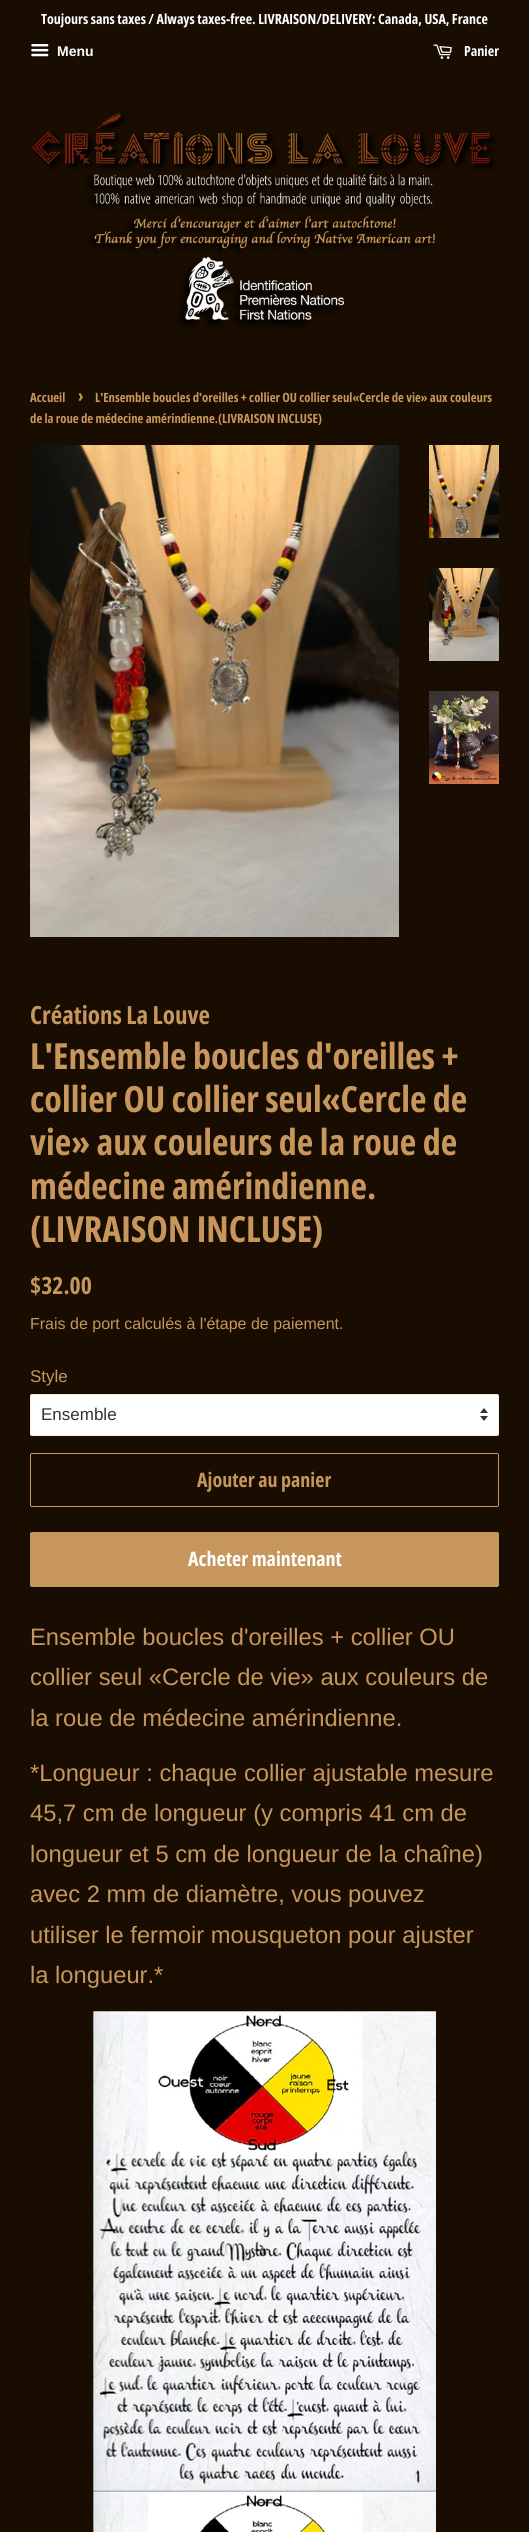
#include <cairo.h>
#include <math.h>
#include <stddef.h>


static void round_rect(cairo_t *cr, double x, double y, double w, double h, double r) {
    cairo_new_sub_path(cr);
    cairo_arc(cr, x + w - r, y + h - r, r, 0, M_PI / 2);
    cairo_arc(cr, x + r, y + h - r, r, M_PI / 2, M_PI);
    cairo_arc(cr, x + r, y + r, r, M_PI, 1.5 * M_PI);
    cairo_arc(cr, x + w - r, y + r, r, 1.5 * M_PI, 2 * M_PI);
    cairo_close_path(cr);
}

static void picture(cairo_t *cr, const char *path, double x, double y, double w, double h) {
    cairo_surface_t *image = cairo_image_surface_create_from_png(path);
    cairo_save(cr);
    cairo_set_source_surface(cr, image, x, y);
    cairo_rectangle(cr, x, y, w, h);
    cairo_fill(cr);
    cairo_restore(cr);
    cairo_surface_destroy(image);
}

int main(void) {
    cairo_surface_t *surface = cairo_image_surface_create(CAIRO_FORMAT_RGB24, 529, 2532);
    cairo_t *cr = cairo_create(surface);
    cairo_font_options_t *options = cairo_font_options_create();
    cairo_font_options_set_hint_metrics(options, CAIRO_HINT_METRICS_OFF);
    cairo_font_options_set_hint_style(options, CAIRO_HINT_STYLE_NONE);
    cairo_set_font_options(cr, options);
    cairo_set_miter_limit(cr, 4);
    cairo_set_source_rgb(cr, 0.098, 0.047, 0);
    cairo_paint(cr);
    cairo_select_font_face(cr, "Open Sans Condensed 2", CAIRO_FONT_SLANT_NORMAL, CAIRO_FONT_WEIGHT_BOLD);
    cairo_set_font_size(cr, 14);
    cairo_set_source_rgb(cr, 1, 1, 1);
    cairo_move_to(cr, 41, 24);
    cairo_show_text(cr, "Toujours sans taxes / Always taxes-free. LIVRAISON/DELIVERY: Canada, USA, France");
    picture(cr, "img1.png", 31, 44, 18, 13);
    cairo_select_font_face(cr, "Liberation Sans", CAIRO_FONT_SLANT_NORMAL, CAIRO_FONT_WEIGHT_BOLD);
    cairo_move_to(cr, 57, 56);
    cairo_show_text(cr, "Menu");
    picture(cr, "img2.png", 433, 44, 19, 15);
    cairo_select_font_face(cr, "Open Sans Condensed", CAIRO_FONT_SLANT_NORMAL, CAIRO_FONT_WEIGHT_BOLD);
    cairo_move_to(cr, 464, 56);
    cairo_show_text(cr, "Panier");
    picture(cr, "img3.png", 32, 113, 464, 215);
    cairo_select_font_face(cr, "Open Sans Condensed 2", CAIRO_FONT_SLANT_NORMAL, CAIRO_FONT_WEIGHT_BOLD);
    cairo_set_font_size(cr, 12.75);
    cairo_set_source_rgb(cr, 0.78, 0.588, 0.365);
    cairo_move_to(cr, 30, 402);
    cairo_show_text(cr, "Accueil");
    cairo_set_font_size(cr, 18);
    cairo_move_to(cr, 78, 402);
    cairo_show_text(cr, "›");
    cairo_set_font_size(cr, 12.75);
    cairo_move_to(cr, 95, 402);
    cairo_show_text(cr, "L'Ensemble boucles d'oreilles + collier OU collier seul«Cercle de vie» aux couleurs");
    cairo_move_to(cr, 30, 423);
    cairo_show_text(cr, "de la roue de médecine amérindienne.(LIVRAISON INCLUSE)");
    picture(cr, "img4.png", 30, 445, 369, 492);
    picture(cr, "img5.png", 429, 445, 70, 93);
    picture(cr, "img6.png", 429, 568, 70, 93);
    picture(cr, "img7.png", 429, 691, 70, 93);
    cairo_set_font_size(cr, 25);
    cairo_move_to(cr, 30, 1024);
    cairo_show_text(cr, "Créations La Louve");
    cairo_set_font_size(cr, 36);
    cairo_move_to(cr, 30, 1069);
    cairo_show_text(cr, "L'Ensemble boucles d'oreilles +");
    cairo_move_to(cr, 30, 1112);
    cairo_show_text(cr, "collier OU collier seul«Cercle de");
    cairo_move_to(cr, 30, 1155);
    cairo_show_text(cr, "vie» aux couleurs de la roue de");
    cairo_move_to(cr, 30, 1199);
    cairo_show_text(cr, "médecine amérindienne.");
    cairo_move_to(cr, 30, 1242);
    cairo_show_text(cr, "(LIVRAISON INCLUSE)");
    cairo_set_font_size(cr, 23.75);
    cairo_move_to(cr, 30, 1294);
    cairo_show_text(cr, "$32.00");
    cairo_select_font_face(cr, "Liberation Sans", CAIRO_FONT_SLANT_NORMAL, CAIRO_FONT_WEIGHT_NORMAL);
    cairo_set_font_size(cr, 16);
    cairo_move_to(cr, 30, 1329);
    cairo_show_text(cr, "Frais de port calculés à l'étape de paiement.");
    cairo_set_font_size(cr, 17);
    cairo_move_to(cr, 30, 1382);
    cairo_show_text(cr, "Style");
    cairo_set_source_rgb(cr, 1, 1, 1);
    round_rect(cr, 30, 1394, 469, 42, 2);
    cairo_fill(cr);
    picture(cr, "img8.png", 480, 1408, 8, 13);
    round_rect(cr, 30.5, 1394.5, 468, 41, 1.5);
    cairo_set_source_rgba(cr, 0.78, 0.588, 0.365, 0.15);
    cairo_set_line_width(cr, 1);
    cairo_stroke(cr);
    cairo_set_source_rgb(cr, 0.2, 0.2, 0.2);
    cairo_move_to(cr, 41, 1420);
    cairo_show_text(cr, "Ensemble");
    round_rect(cr, 30.5, 1453.5, 468, 53, 1.5);
    cairo_set_source_rgb(cr, 0.78, 0.588, 0.365);
    cairo_stroke(cr);
    cairo_select_font_face(cr, "Open Sans Condensed 2", CAIRO_FONT_SLANT_NORMAL, CAIRO_FONT_WEIGHT_BOLD);
    cairo_set_font_size(cr, 20);
    cairo_move_to(cr, 197, 1487);
    cairo_show_text(cr, "Ajouter au panier");
    round_rect(cr, 30, 1532, 469, 55, 2);
    cairo_fill(cr);
    cairo_set_source_rgb(cr, 1, 1, 1);
    cairo_move_to(cr, 188, 1566);
    cairo_show_text(cr, "Acheter maintenant");
    cairo_select_font_face(cr, "Liberation Sans", CAIRO_FONT_SLANT_NORMAL, CAIRO_FONT_WEIGHT_NORMAL);
    cairo_set_font_size(cr, 23.75);
    cairo_set_source_rgb(cr, 0.78, 0.588, 0.365);
    cairo_move_to(cr, 30, 1645);
    cairo_show_text(cr, "Ensemble boucles d'oreilles + collier OU");
    cairo_move_to(cr, 30, 1685);
    cairo_show_text(cr, "collier seul «Cercle de vie» aux couleurs de");
    cairo_move_to(cr, 30, 1726);
    cairo_show_text(cr, "la roue de médecine amérindienne.");
    cairo_move_to(cr, 30, 1781);
    cairo_show_text(cr, "*Longueur : chaque collier ajustable mesure");
    cairo_move_to(cr, 30, 1821);
    cairo_show_text(cr, "45,7 cm de longueur (y compris 41 cm de");
    cairo_move_to(cr, 30, 1862);
    cairo_show_text(cr, "longueur et 5 cm de longueur de la chaîne)");
    cairo_move_to(cr, 30, 1902);
    cairo_show_text(cr, "avec 2 mm de diamètre, vous pouvez");
    cairo_move_to(cr, 30, 1943);
    cairo_show_text(cr, "utiliser le fermoir mousqueton pour ajuster");
    cairo_move_to(cr, 30, 1983);
    cairo_show_text(cr, "la longueur.*");
    picture(cr, "img9.png", 93, 2011, 343, 480);
    picture(cr, "img10.png", 93, 2491, 343, 41);
    cairo_surface_write_to_png(surface, "page.png");
    cairo_font_options_destroy(options);
    cairo_destroy(cr);
    cairo_surface_destroy(surface);
    return 0;
}
